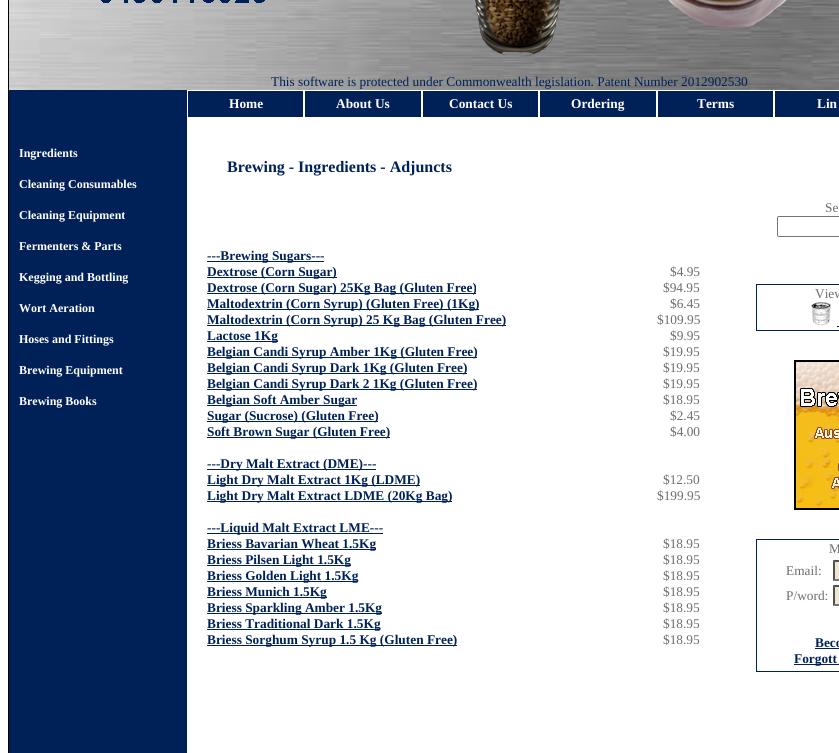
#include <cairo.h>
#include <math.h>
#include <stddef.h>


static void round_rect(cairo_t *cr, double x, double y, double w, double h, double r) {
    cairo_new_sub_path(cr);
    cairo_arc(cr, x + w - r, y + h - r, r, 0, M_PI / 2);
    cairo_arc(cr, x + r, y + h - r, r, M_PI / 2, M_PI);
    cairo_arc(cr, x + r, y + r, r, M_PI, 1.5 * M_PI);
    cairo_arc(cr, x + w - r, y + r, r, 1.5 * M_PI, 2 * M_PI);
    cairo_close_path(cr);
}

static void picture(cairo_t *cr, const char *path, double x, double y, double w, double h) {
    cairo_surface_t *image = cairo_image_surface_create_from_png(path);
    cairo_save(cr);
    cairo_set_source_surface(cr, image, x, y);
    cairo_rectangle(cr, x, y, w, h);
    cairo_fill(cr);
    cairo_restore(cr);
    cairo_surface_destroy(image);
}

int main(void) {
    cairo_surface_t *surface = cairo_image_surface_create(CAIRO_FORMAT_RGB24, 839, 753);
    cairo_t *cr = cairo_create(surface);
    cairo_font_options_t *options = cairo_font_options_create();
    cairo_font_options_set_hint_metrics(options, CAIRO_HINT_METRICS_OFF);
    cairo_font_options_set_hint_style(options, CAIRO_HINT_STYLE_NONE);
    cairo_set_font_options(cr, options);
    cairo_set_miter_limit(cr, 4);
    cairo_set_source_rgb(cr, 1, 1, 1);
    cairo_paint(cr);
    cairo_rectangle(cr, 8.5, -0.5, 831, 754);
    cairo_set_source_rgb(cr, 0, 0, 0);
    cairo_set_line_width(cr, 1);
    cairo_stroke(cr);
    picture(cr, "img1.png", 9, 0, 830, 74);
    picture(cr, "img2.png", 9, 74, 830, 16);
    cairo_select_font_face(cr, "Liberation Serif", CAIRO_FONT_SLANT_NORMAL, CAIRO_FONT_WEIGHT_NORMAL);
    cairo_set_font_size(cr, 13.35);
    cairo_set_source_rgb(cr, 0, 0.129, 0.341);
    cairo_move_to(cr, 271, 86);
    cairo_show_text(cr, "This software is protected under Commonwealth legislation. Patent Number 2012902530");
    cairo_rectangle(cr, 188, 91, 115, 26);
    cairo_fill(cr);
    cairo_select_font_face(cr, "Liberation Serif", CAIRO_FONT_SLANT_NORMAL, CAIRO_FONT_WEIGHT_BOLD);
    cairo_set_source_rgb(cr, 1, 1, 1);
    cairo_move_to(cr, 229, 108);
    cairo_show_text(cr, "Home");
    cairo_set_source_rgb(cr, 0, 0.129, 0.341);
    cairo_rectangle(cr, 305, 91, 116, 26);
    cairo_fill(cr);
    cairo_set_source_rgb(cr, 1, 1, 1);
    cairo_move_to(cr, 336, 108);
    cairo_show_text(cr, "About Us");
    cairo_set_source_rgb(cr, 0, 0.129, 0.341);
    cairo_rectangle(cr, 423, 91, 115, 26);
    cairo_fill(cr);
    cairo_set_source_rgb(cr, 1, 1, 1);
    cairo_move_to(cr, 449, 108);
    cairo_show_text(cr, "Contact Us");
    cairo_set_source_rgb(cr, 0, 0.129, 0.341);
    cairo_rectangle(cr, 540, 91, 116, 26);
    cairo_fill(cr);
    cairo_set_source_rgb(cr, 1, 1, 1);
    cairo_move_to(cr, 571, 108);
    cairo_show_text(cr, "Ordering");
    cairo_set_source_rgb(cr, 0, 0.129, 0.341);
    cairo_rectangle(cr, 658, 91, 115, 26);
    cairo_fill(cr);
    cairo_set_source_rgb(cr, 1, 1, 1);
    cairo_move_to(cr, 697, 108);
    cairo_show_text(cr, "Terms");
    cairo_set_source_rgb(cr, 0, 0.129, 0.341);
    cairo_rectangle(cr, 775, 91, 64, 26);
    cairo_fill(cr);
    cairo_set_source_rgb(cr, 1, 1, 1);
    cairo_move_to(cr, 817, 108);
    cairo_show_text(cr, "Lin");
    cairo_set_source_rgb(cr, 0, 0.129, 0.341);
    cairo_rectangle(cr, 9, 90, 178, 663);
    cairo_fill(cr);
    cairo_set_font_size(cr, 12);
    cairo_set_source_rgb(cr, 1, 1, 1);
    cairo_move_to(cr, 19, 157);
    cairo_show_text(cr, "Ingredients");
    cairo_move_to(cr, 19, 188);
    cairo_show_text(cr, "Cleaning Consumables");
    cairo_move_to(cr, 19, 219);
    cairo_show_text(cr, "Cleaning Equipment");
    cairo_move_to(cr, 19, 250);
    cairo_show_text(cr, "Fermenters & Parts");
    cairo_move_to(cr, 19, 281);
    cairo_show_text(cr, "Kegging and Bottling");
    cairo_move_to(cr, 19, 312);
    cairo_show_text(cr, "Wort Aeration");
    cairo_move_to(cr, 19, 343);
    cairo_show_text(cr, "Hoses and Fittings");
    cairo_move_to(cr, 19, 374);
    cairo_show_text(cr, "Brewing Equipment");
    cairo_move_to(cr, 19, 405);
    cairo_show_text(cr, "Brewing Books");
    cairo_set_font_size(cr, 16);
    cairo_set_source_rgb(cr, 0, 0.129, 0.341);
    cairo_move_to(cr, 227, 172);
    cairo_show_text(cr, "Brewing - Ingredients - Adjuncts");
    cairo_rectangle(cr, 207, 261, 117, 1);
    cairo_fill(cr);
    cairo_set_font_size(cr, 13.35);
    cairo_move_to(cr, 207, 260);
    cairo_show_text(cr, "---Brewing Sugars---");
    cairo_rectangle(cr, 207, 277, 130, 1);
    cairo_fill(cr);
    cairo_move_to(cr, 207, 276);
    cairo_show_text(cr, "Dextrose (Corn Sugar)");
    cairo_select_font_face(cr, "Liberation Serif", CAIRO_FONT_SLANT_NORMAL, CAIRO_FONT_WEIGHT_NORMAL);
    cairo_set_source_rgb(cr, 0.424, 0.424, 0.424);
    cairo_move_to(cr, 670, 276);
    cairo_show_text(cr, "$4.95");
    cairo_set_source_rgb(cr, 0, 0.129, 0.341);
    cairo_rectangle(cr, 207, 293, 269, 1);
    cairo_fill(cr);
    cairo_select_font_face(cr, "Liberation Serif", CAIRO_FONT_SLANT_NORMAL, CAIRO_FONT_WEIGHT_BOLD);
    cairo_move_to(cr, 207, 292);
    cairo_show_text(cr, "Dextrose (Corn Sugar) 25Kg Bag (Gluten Free)");
    cairo_select_font_face(cr, "Liberation Serif", CAIRO_FONT_SLANT_NORMAL, CAIRO_FONT_WEIGHT_NORMAL);
    cairo_set_source_rgb(cr, 0.424, 0.424, 0.424);
    cairo_move_to(cr, 663, 292);
    cairo_show_text(cr, "$94.95");
    cairo_set_source_rgb(cr, 0, 0.129, 0.341);
    cairo_rectangle(cr, 207, 309, 272, 1);
    cairo_fill(cr);
    cairo_select_font_face(cr, "Liberation Serif", CAIRO_FONT_SLANT_NORMAL, CAIRO_FONT_WEIGHT_BOLD);
    cairo_move_to(cr, 207, 308);
    cairo_show_text(cr, "Maltodextrin (Corn Syrup) (Gluten Free) (1Kg)");
    cairo_select_font_face(cr, "Liberation Serif", CAIRO_FONT_SLANT_NORMAL, CAIRO_FONT_WEIGHT_NORMAL);
    cairo_set_source_rgb(cr, 0.424, 0.424, 0.424);
    cairo_move_to(cr, 670, 308);
    cairo_show_text(cr, "$6.45");
    cairo_set_source_rgb(cr, 0, 0.129, 0.341);
    cairo_rectangle(cr, 207, 325, 299, 1);
    cairo_fill(cr);
    cairo_select_font_face(cr, "Liberation Serif", CAIRO_FONT_SLANT_NORMAL, CAIRO_FONT_WEIGHT_BOLD);
    cairo_move_to(cr, 207, 324);
    cairo_show_text(cr, "Maltodextrin (Corn Syrup) 25 Kg Bag (Gluten Free)");
    cairo_select_font_face(cr, "Liberation Serif", CAIRO_FONT_SLANT_NORMAL, CAIRO_FONT_WEIGHT_NORMAL);
    cairo_set_source_rgb(cr, 0.424, 0.424, 0.424);
    cairo_move_to(cr, 657, 324);
    cairo_show_text(cr, "$109.95");
    cairo_set_source_rgb(cr, 0, 0.129, 0.341);
    cairo_rectangle(cr, 207, 341, 71, 1);
    cairo_fill(cr);
    cairo_select_font_face(cr, "Liberation Serif", CAIRO_FONT_SLANT_NORMAL, CAIRO_FONT_WEIGHT_BOLD);
    cairo_move_to(cr, 207, 340);
    cairo_show_text(cr, "Lactose 1Kg");
    cairo_select_font_face(cr, "Liberation Serif", CAIRO_FONT_SLANT_NORMAL, CAIRO_FONT_WEIGHT_NORMAL);
    cairo_set_source_rgb(cr, 0.424, 0.424, 0.424);
    cairo_move_to(cr, 670, 340);
    cairo_show_text(cr, "$9.95");
    cairo_set_source_rgb(cr, 0, 0.129, 0.341);
    cairo_rectangle(cr, 207, 357, 270, 1);
    cairo_fill(cr);
    cairo_select_font_face(cr, "Liberation Serif", CAIRO_FONT_SLANT_NORMAL, CAIRO_FONT_WEIGHT_BOLD);
    cairo_move_to(cr, 207, 356);
    cairo_show_text(cr, "Belgian Candi Syrup Amber 1Kg (Gluten Free)");
    cairo_select_font_face(cr, "Liberation Serif", CAIRO_FONT_SLANT_NORMAL, CAIRO_FONT_WEIGHT_NORMAL);
    cairo_set_source_rgb(cr, 0.424, 0.424, 0.424);
    cairo_move_to(cr, 663, 356);
    cairo_show_text(cr, "$19.95");
    cairo_set_source_rgb(cr, 0, 0.129, 0.341);
    cairo_rectangle(cr, 207, 373, 260, 1);
    cairo_fill(cr);
    cairo_select_font_face(cr, "Liberation Serif", CAIRO_FONT_SLANT_NORMAL, CAIRO_FONT_WEIGHT_BOLD);
    cairo_move_to(cr, 207, 372);
    cairo_show_text(cr, "Belgian Candi Syrup Dark 1Kg (Gluten Free)");
    cairo_select_font_face(cr, "Liberation Serif", CAIRO_FONT_SLANT_NORMAL, CAIRO_FONT_WEIGHT_NORMAL);
    cairo_set_source_rgb(cr, 0.424, 0.424, 0.424);
    cairo_move_to(cr, 663, 372);
    cairo_show_text(cr, "$19.95");
    cairo_set_source_rgb(cr, 0, 0.129, 0.341);
    cairo_rectangle(cr, 207, 389, 270, 1);
    cairo_fill(cr);
    cairo_select_font_face(cr, "Liberation Serif", CAIRO_FONT_SLANT_NORMAL, CAIRO_FONT_WEIGHT_BOLD);
    cairo_move_to(cr, 207, 388);
    cairo_show_text(cr, "Belgian Candi Syrup Dark 2 1Kg (Gluten Free)");
    cairo_select_font_face(cr, "Liberation Serif", CAIRO_FONT_SLANT_NORMAL, CAIRO_FONT_WEIGHT_NORMAL);
    cairo_set_source_rgb(cr, 0.424, 0.424, 0.424);
    cairo_move_to(cr, 663, 388);
    cairo_show_text(cr, "$19.95");
    cairo_set_source_rgb(cr, 0, 0.129, 0.341);
    cairo_rectangle(cr, 207, 405, 150, 1);
    cairo_fill(cr);
    cairo_select_font_face(cr, "Liberation Serif", CAIRO_FONT_SLANT_NORMAL, CAIRO_FONT_WEIGHT_BOLD);
    cairo_move_to(cr, 207, 404);
    cairo_show_text(cr, "Belgian Soft Amber Sugar");
    cairo_select_font_face(cr, "Liberation Serif", CAIRO_FONT_SLANT_NORMAL, CAIRO_FONT_WEIGHT_NORMAL);
    cairo_set_source_rgb(cr, 0.424, 0.424, 0.424);
    cairo_move_to(cr, 663, 404);
    cairo_show_text(cr, "$18.95");
    cairo_set_source_rgb(cr, 0, 0.129, 0.341);
    cairo_rectangle(cr, 207, 421, 171, 1);
    cairo_fill(cr);
    cairo_select_font_face(cr, "Liberation Serif", CAIRO_FONT_SLANT_NORMAL, CAIRO_FONT_WEIGHT_BOLD);
    cairo_move_to(cr, 207, 420);
    cairo_show_text(cr, "Sugar (Sucrose) (Gluten Free)");
    cairo_select_font_face(cr, "Liberation Serif", CAIRO_FONT_SLANT_NORMAL, CAIRO_FONT_WEIGHT_NORMAL);
    cairo_set_source_rgb(cr, 0.424, 0.424, 0.424);
    cairo_move_to(cr, 670, 420);
    cairo_show_text(cr, "$2.45");
    cairo_set_source_rgb(cr, 0, 0.129, 0.341);
    cairo_rectangle(cr, 207, 437, 183, 1);
    cairo_fill(cr);
    cairo_select_font_face(cr, "Liberation Serif", CAIRO_FONT_SLANT_NORMAL, CAIRO_FONT_WEIGHT_BOLD);
    cairo_move_to(cr, 207, 436);
    cairo_show_text(cr, "Soft Brown Sugar (Gluten Free)");
    cairo_select_font_face(cr, "Liberation Serif", CAIRO_FONT_SLANT_NORMAL, CAIRO_FONT_WEIGHT_NORMAL);
    cairo_set_source_rgb(cr, 0.424, 0.424, 0.424);
    cairo_move_to(cr, 670, 436);
    cairo_show_text(cr, "$4.00");
    cairo_set_source_rgb(cr, 0, 0.129, 0.341);
    cairo_rectangle(cr, 207, 469, 169, 1);
    cairo_fill(cr);
    cairo_select_font_face(cr, "Liberation Serif", CAIRO_FONT_SLANT_NORMAL, CAIRO_FONT_WEIGHT_BOLD);
    cairo_move_to(cr, 207, 468);
    cairo_show_text(cr, "---Dry Malt Extract (DME)---");
    cairo_rectangle(cr, 207, 485, 213, 1);
    cairo_fill(cr);
    cairo_move_to(cr, 207, 484);
    cairo_show_text(cr, "Light Dry Malt Extract 1Kg (LDME)");
    cairo_select_font_face(cr, "Liberation Serif", CAIRO_FONT_SLANT_NORMAL, CAIRO_FONT_WEIGHT_NORMAL);
    cairo_set_source_rgb(cr, 0.424, 0.424, 0.424);
    cairo_move_to(cr, 663, 484);
    cairo_show_text(cr, "$12.50");
    cairo_set_source_rgb(cr, 0, 0.129, 0.341);
    cairo_rectangle(cr, 207, 501, 245, 1);
    cairo_fill(cr);
    cairo_select_font_face(cr, "Liberation Serif", CAIRO_FONT_SLANT_NORMAL, CAIRO_FONT_WEIGHT_BOLD);
    cairo_move_to(cr, 207, 500);
    cairo_show_text(cr, "Light Dry Malt Extract LDME (20Kg Bag)");
    cairo_select_font_face(cr, "Liberation Serif", CAIRO_FONT_SLANT_NORMAL, CAIRO_FONT_WEIGHT_NORMAL);
    cairo_set_source_rgb(cr, 0.424, 0.424, 0.424);
    cairo_move_to(cr, 657, 500);
    cairo_show_text(cr, "$199.95");
    cairo_set_source_rgb(cr, 0, 0.129, 0.341);
    cairo_rectangle(cr, 207, 533, 176, 1);
    cairo_fill(cr);
    cairo_select_font_face(cr, "Liberation Serif", CAIRO_FONT_SLANT_NORMAL, CAIRO_FONT_WEIGHT_BOLD);
    cairo_move_to(cr, 207, 532);
    cairo_show_text(cr, "---Liquid Malt Extract LME---");
    cairo_rectangle(cr, 207, 549, 169, 1);
    cairo_fill(cr);
    cairo_move_to(cr, 207, 548);
    cairo_show_text(cr, "Briess Bavarian Wheat 1.5Kg");
    cairo_select_font_face(cr, "Liberation Serif", CAIRO_FONT_SLANT_NORMAL, CAIRO_FONT_WEIGHT_NORMAL);
    cairo_set_source_rgb(cr, 0.424, 0.424, 0.424);
    cairo_move_to(cr, 663, 548);
    cairo_show_text(cr, "$18.95");
    cairo_set_source_rgb(cr, 0, 0.129, 0.341);
    cairo_rectangle(cr, 207, 565, 144, 1);
    cairo_fill(cr);
    cairo_select_font_face(cr, "Liberation Serif", CAIRO_FONT_SLANT_NORMAL, CAIRO_FONT_WEIGHT_BOLD);
    cairo_move_to(cr, 207, 564);
    cairo_show_text(cr, "Briess Pilsen Light 1.5Kg");
    cairo_select_font_face(cr, "Liberation Serif", CAIRO_FONT_SLANT_NORMAL, CAIRO_FONT_WEIGHT_NORMAL);
    cairo_set_source_rgb(cr, 0.424, 0.424, 0.424);
    cairo_move_to(cr, 663, 564);
    cairo_show_text(cr, "$18.95");
    cairo_set_source_rgb(cr, 0, 0.129, 0.341);
    cairo_rectangle(cr, 207, 581, 151, 1);
    cairo_fill(cr);
    cairo_select_font_face(cr, "Liberation Serif", CAIRO_FONT_SLANT_NORMAL, CAIRO_FONT_WEIGHT_BOLD);
    cairo_move_to(cr, 207, 580);
    cairo_show_text(cr, "Briess Golden Light 1.5Kg");
    cairo_select_font_face(cr, "Liberation Serif", CAIRO_FONT_SLANT_NORMAL, CAIRO_FONT_WEIGHT_NORMAL);
    cairo_set_source_rgb(cr, 0.424, 0.424, 0.424);
    cairo_move_to(cr, 663, 580);
    cairo_show_text(cr, "$18.95");
    cairo_set_source_rgb(cr, 0, 0.129, 0.341);
    cairo_rectangle(cr, 207, 597, 120, 1);
    cairo_fill(cr);
    cairo_select_font_face(cr, "Liberation Serif", CAIRO_FONT_SLANT_NORMAL, CAIRO_FONT_WEIGHT_BOLD);
    cairo_move_to(cr, 207, 596);
    cairo_show_text(cr, "Briess Munich 1.5Kg");
    cairo_select_font_face(cr, "Liberation Serif", CAIRO_FONT_SLANT_NORMAL, CAIRO_FONT_WEIGHT_NORMAL);
    cairo_set_source_rgb(cr, 0.424, 0.424, 0.424);
    cairo_move_to(cr, 663, 596);
    cairo_show_text(cr, "$18.95");
    cairo_set_source_rgb(cr, 0, 0.129, 0.341);
    cairo_rectangle(cr, 207, 613, 175, 1);
    cairo_fill(cr);
    cairo_select_font_face(cr, "Liberation Serif", CAIRO_FONT_SLANT_NORMAL, CAIRO_FONT_WEIGHT_BOLD);
    cairo_move_to(cr, 207, 612);
    cairo_show_text(cr, "Briess Sparkling Amber 1.5Kg");
    cairo_select_font_face(cr, "Liberation Serif", CAIRO_FONT_SLANT_NORMAL, CAIRO_FONT_WEIGHT_NORMAL);
    cairo_set_source_rgb(cr, 0.424, 0.424, 0.424);
    cairo_move_to(cr, 663, 612);
    cairo_show_text(cr, "$18.95");
    cairo_set_source_rgb(cr, 0, 0.129, 0.341);
    cairo_rectangle(cr, 207, 629, 173, 1);
    cairo_fill(cr);
    cairo_select_font_face(cr, "Liberation Serif", CAIRO_FONT_SLANT_NORMAL, CAIRO_FONT_WEIGHT_BOLD);
    cairo_move_to(cr, 207, 628);
    cairo_show_text(cr, "Briess Traditional Dark 1.5Kg");
    cairo_select_font_face(cr, "Liberation Serif", CAIRO_FONT_SLANT_NORMAL, CAIRO_FONT_WEIGHT_NORMAL);
    cairo_set_source_rgb(cr, 0.424, 0.424, 0.424);
    cairo_move_to(cr, 663, 628);
    cairo_show_text(cr, "$18.95");
    cairo_set_source_rgb(cr, 0, 0.129, 0.341);
    cairo_rectangle(cr, 207, 645, 250, 1);
    cairo_fill(cr);
    cairo_select_font_face(cr, "Liberation Serif", CAIRO_FONT_SLANT_NORMAL, CAIRO_FONT_WEIGHT_BOLD);
    cairo_move_to(cr, 207, 644);
    cairo_show_text(cr, "Briess Sorghum Syrup 1.5 Kg (Gluten Free)");
    cairo_select_font_face(cr, "Liberation Serif", CAIRO_FONT_SLANT_NORMAL, CAIRO_FONT_WEIGHT_NORMAL);
    cairo_set_source_rgb(cr, 0.424, 0.424, 0.424);
    cairo_move_to(cr, 663, 644);
    cairo_show_text(cr, "$18.95");
    cairo_move_to(cr, 825, 212);
    cairo_show_text(cr, "Se");
    round_rect(cr, 777.5, 216.5, 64, 20, 1.5);
    cairo_set_source_rgb(cr, 0.463, 0.463, 0.463);
    cairo_stroke(cr);
    cairo_rectangle(cr, 756.5, 284.5, 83, 46);
    cairo_set_source_rgb(cr, 0, 0.129, 0.341);
    cairo_stroke(cr);
    cairo_set_source_rgb(cr, 0.424, 0.424, 0.424);
    cairo_move_to(cr, 815, 298);
    cairo_show_text(cr, "View");
    picture(cr, "img3.png", 811, 302, 20, 23);
    cairo_set_source_rgb(cr, 0, 0.129, 0.341);
    cairo_rectangle(cr, 837, 326, 2, 1);
    cairo_fill(cr);
    picture(cr, "img4.png", 794, 360, 45, 150);
    cairo_rectangle(cr, 756.5, 539.5, 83, 132);
    cairo_stroke(cr);
    cairo_set_source_rgb(cr, 0.424, 0.424, 0.424);
    cairo_move_to(cr, 829, 553);
    cairo_show_text(cr, "M");
    cairo_move_to(cr, 786, 575);
    cairo_show_text(cr, "Email:");
    cairo_set_source_rgb(cr, 0.929, 0.902, 0.816);
    cairo_rectangle(cr, 833, 560, 6, 21);
    cairo_fill(cr);
    cairo_set_source_rgb(cr, 0.31, 0.31, 0.31);
    cairo_new_path(cr);
    cairo_move_to(cr, 833, 560);
    cairo_line_to(cr, 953, 560);
    cairo_line_to(cr, 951, 562);
    cairo_line_to(cr, 835, 562);
    cairo_close_path(cr);
    cairo_fill(cr);
    cairo_set_source_rgb(cr, 0.463, 0.463, 0.463);
    cairo_new_path(cr);
    cairo_move_to(cr, 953, 581);
    cairo_line_to(cr, 833, 581);
    cairo_line_to(cr, 835, 579);
    cairo_line_to(cr, 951, 579);
    cairo_close_path(cr);
    cairo_fill(cr);
    cairo_set_source_rgb(cr, 0.31, 0.31, 0.31);
    cairo_new_path(cr);
    cairo_move_to(cr, 833, 581);
    cairo_line_to(cr, 833, 560);
    cairo_line_to(cr, 835, 562);
    cairo_line_to(cr, 835, 579);
    cairo_close_path(cr);
    cairo_fill(cr);
    cairo_set_source_rgb(cr, 0.424, 0.424, 0.424);
    cairo_move_to(cr, 786, 600);
    cairo_show_text(cr, "P/word:");
    cairo_set_source_rgb(cr, 0.929, 0.902, 0.816);
    cairo_rectangle(cr, 833, 585, 6, 21);
    cairo_fill(cr);
    cairo_set_source_rgb(cr, 0.31, 0.31, 0.31);
    cairo_new_path(cr);
    cairo_move_to(cr, 833, 585);
    cairo_line_to(cr, 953, 585);
    cairo_line_to(cr, 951, 587);
    cairo_line_to(cr, 835, 587);
    cairo_close_path(cr);
    cairo_fill(cr);
    cairo_set_source_rgb(cr, 0.463, 0.463, 0.463);
    cairo_new_path(cr);
    cairo_move_to(cr, 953, 606);
    cairo_line_to(cr, 833, 606);
    cairo_line_to(cr, 835, 604);
    cairo_line_to(cr, 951, 604);
    cairo_close_path(cr);
    cairo_fill(cr);
    cairo_set_source_rgb(cr, 0.31, 0.31, 0.31);
    cairo_new_path(cr);
    cairo_move_to(cr, 833, 606);
    cairo_line_to(cr, 833, 585);
    cairo_line_to(cr, 835, 587);
    cairo_line_to(cr, 835, 604);
    cairo_close_path(cr);
    cairo_fill(cr);
    cairo_select_font_face(cr, "Liberation Serif", CAIRO_FONT_SLANT_NORMAL, CAIRO_FONT_WEIGHT_BOLD);
    cairo_set_source_rgb(cr, 0, 0.129, 0.341);
    cairo_move_to(cr, 815, 647);
    cairo_show_text(cr, "Beco");
    cairo_rectangle(cr, 815, 648, 24, 1);
    cairo_fill(cr);
    cairo_rectangle(cr, 794, 664, 45, 1);
    cairo_fill(cr);
    cairo_move_to(cr, 794, 663);
    cairo_show_text(cr, "Forgott");
    cairo_surface_write_to_png(surface, "page.png");
    cairo_font_options_destroy(options);
    cairo_destroy(cr);
    cairo_surface_destroy(surface);
    return 0;
}
